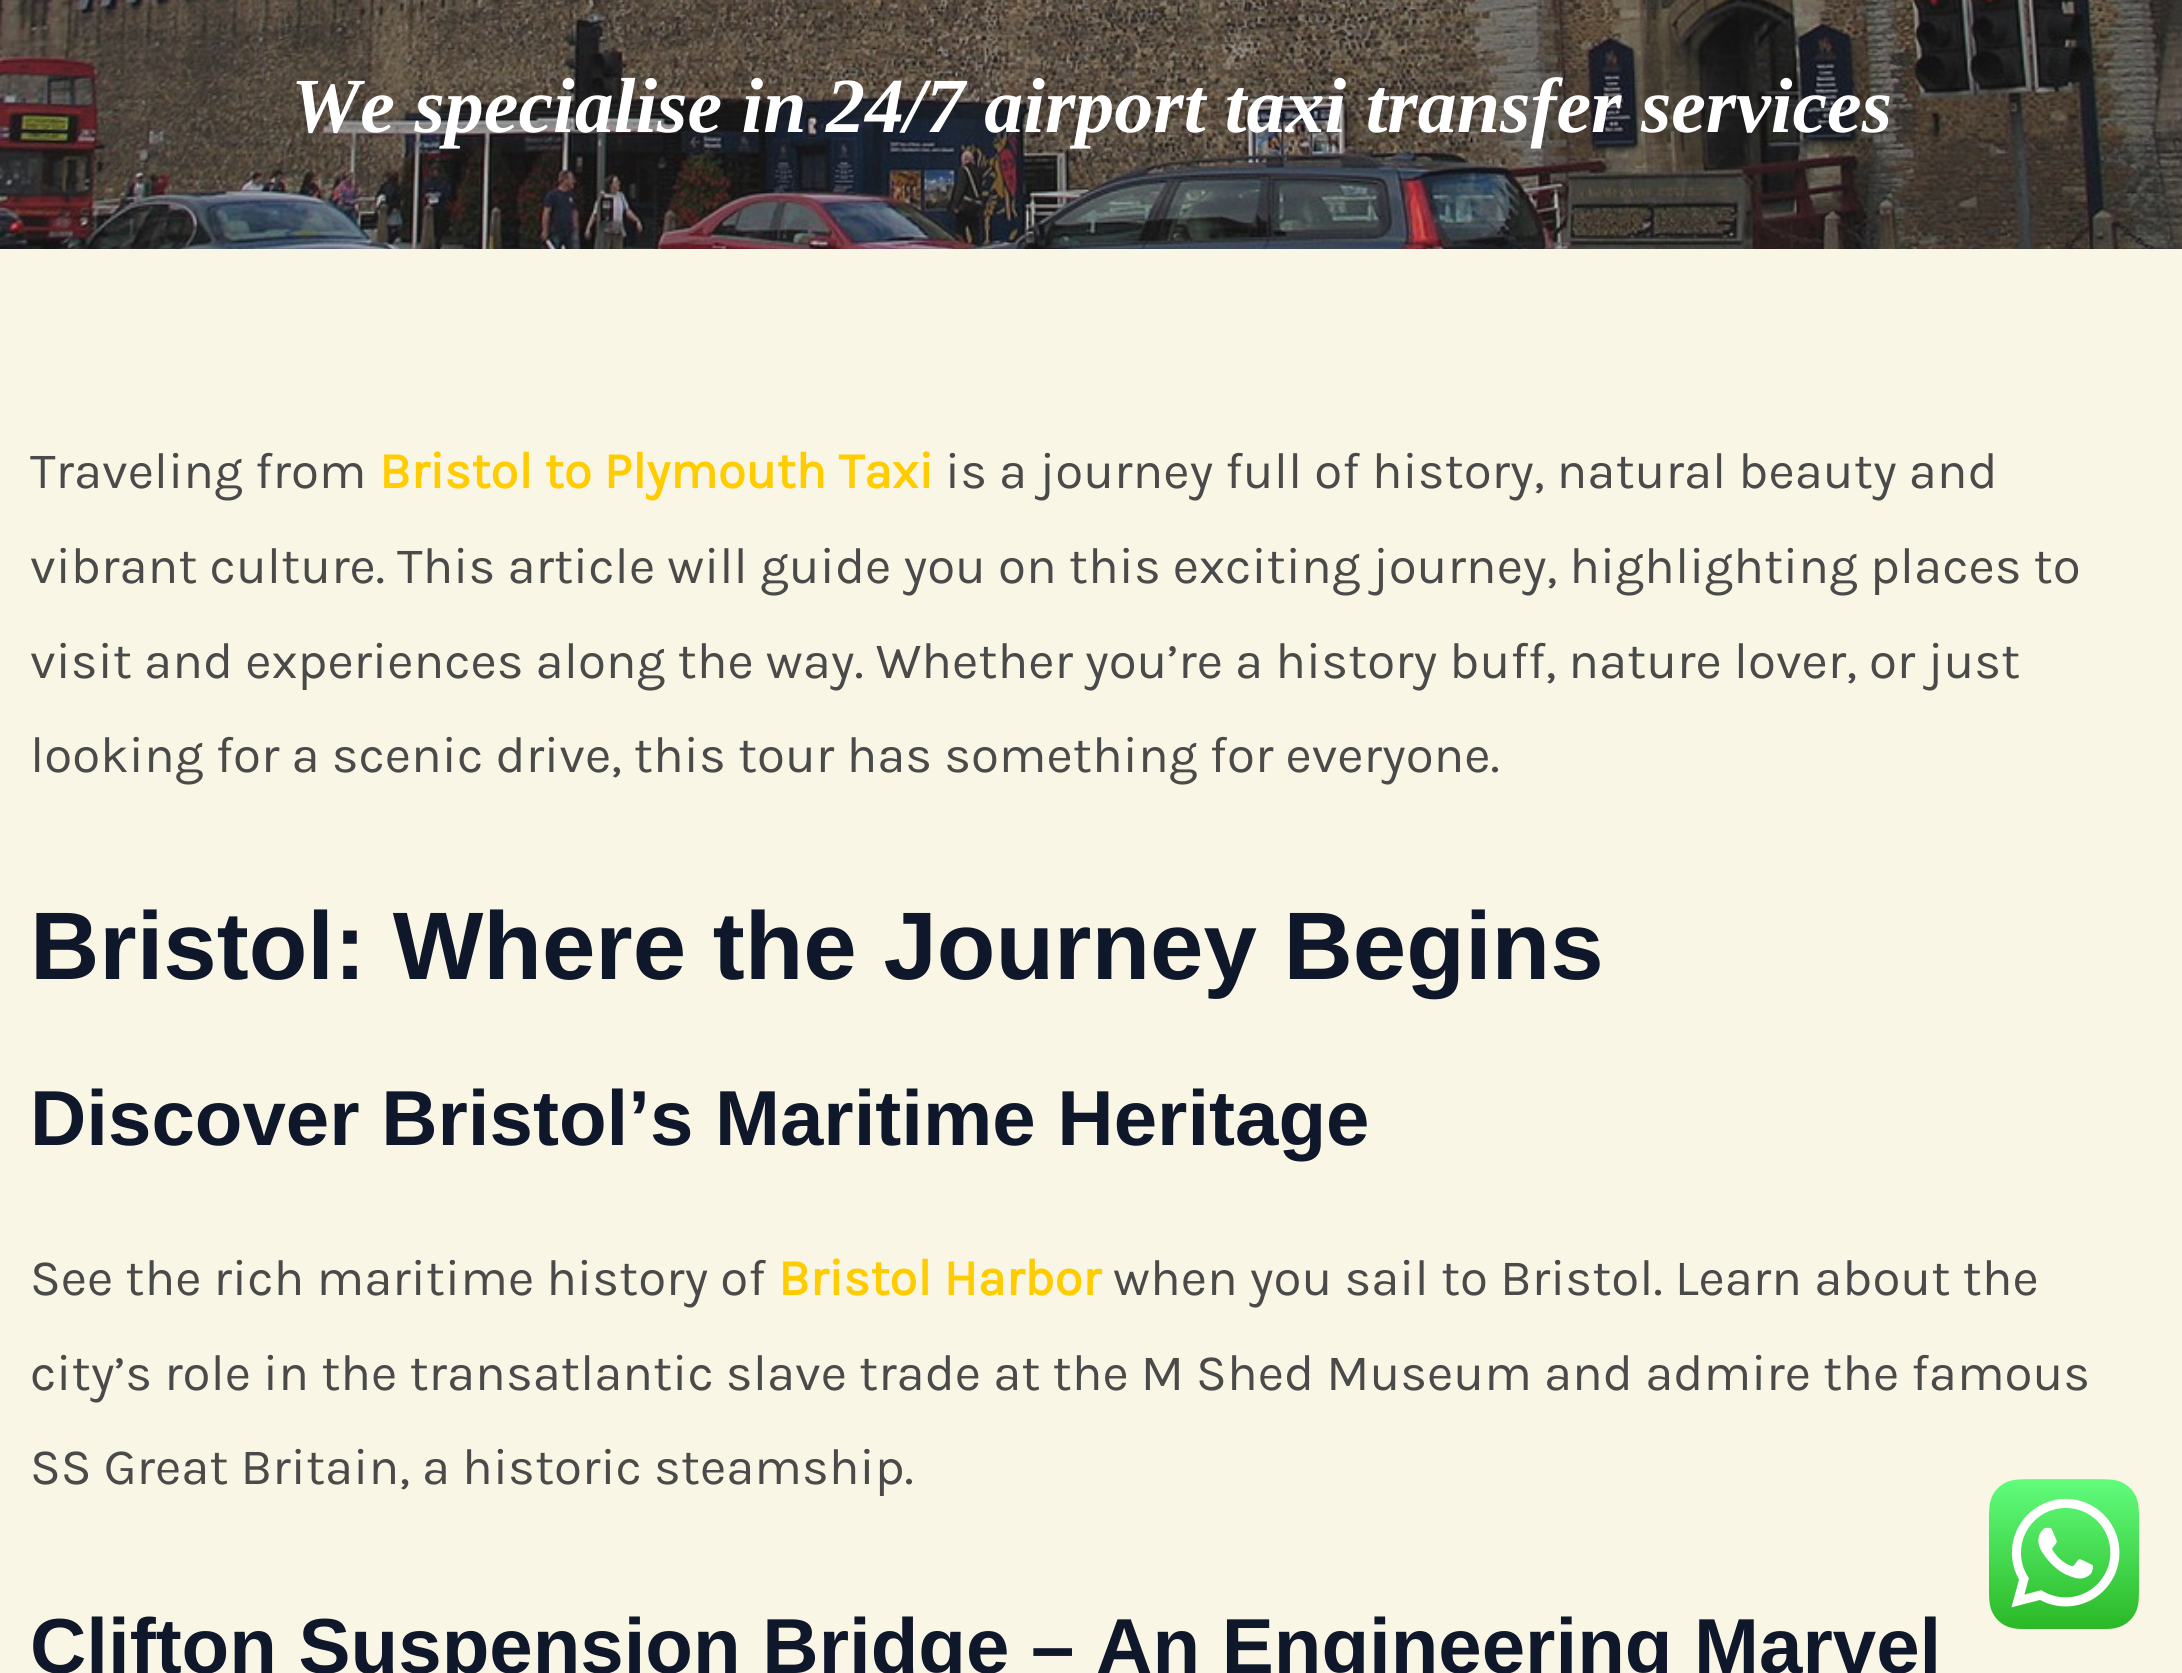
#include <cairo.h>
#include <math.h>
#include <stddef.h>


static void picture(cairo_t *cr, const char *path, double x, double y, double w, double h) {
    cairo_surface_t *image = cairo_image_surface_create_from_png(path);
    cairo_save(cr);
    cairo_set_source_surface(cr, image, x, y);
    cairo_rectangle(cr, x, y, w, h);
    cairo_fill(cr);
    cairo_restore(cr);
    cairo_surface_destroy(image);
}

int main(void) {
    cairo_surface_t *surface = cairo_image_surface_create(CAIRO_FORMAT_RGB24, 2182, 1673);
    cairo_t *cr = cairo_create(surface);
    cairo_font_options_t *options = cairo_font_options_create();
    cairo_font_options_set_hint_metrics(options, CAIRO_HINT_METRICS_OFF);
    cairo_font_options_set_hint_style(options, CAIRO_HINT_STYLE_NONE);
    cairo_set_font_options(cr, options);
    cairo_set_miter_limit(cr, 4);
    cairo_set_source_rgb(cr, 0.98, 0.961, 0.898);
    cairo_paint(cr);
    picture(cr, "img1.png", 0, 0, 2182, 249);
    cairo_select_font_face(cr, "Liberation Serif", CAIRO_FONT_SLANT_ITALIC, CAIRO_FONT_WEIGHT_BOLD);
    cairo_set_font_size(cr, 78);
    cairo_set_source_rgb(cr, 1, 1, 1);
    cairo_move_to(cr, 291, 132);
    cairo_show_text(cr, "We specialise in 24/7 airport taxi transfer services");
    cairo_select_font_face(cr, "Karla", CAIRO_FONT_SLANT_NORMAL, CAIRO_FONT_WEIGHT_NORMAL);
    cairo_set_font_size(cr, 51);
    cairo_set_source_rgb(cr, 0.29, 0.29, 0.29);
    cairo_move_to(cr, 30, 488);
    cairo_show_text(cr, "Traveling from");
    cairo_select_font_face(cr, "Karla", CAIRO_FONT_SLANT_NORMAL, CAIRO_FONT_WEIGHT_BOLD);
    cairo_set_source_rgb(cr, 1, 0.8, 0);
    cairo_move_to(cr, 379, 488);
    cairo_show_text(cr, "Bristol to Plymouth Taxi");
    cairo_select_font_face(cr, "Karla", CAIRO_FONT_SLANT_NORMAL, CAIRO_FONT_WEIGHT_NORMAL);
    cairo_set_source_rgb(cr, 0.29, 0.29, 0.29);
    cairo_move_to(cr, 945, 488);
    cairo_show_text(cr, "is a journey full of history, natural beauty and");
    cairo_move_to(cr, 30, 583);
    cairo_show_text(cr, "vibrant culture. This article will guide you on this exciting journey, highlighting places to");
    cairo_move_to(cr, 30, 678);
    cairo_show_text(cr, "visit and experiences along the way. Whether you’re a history buff, nature lover, or just");
    cairo_move_to(cr, 30, 772);
    cairo_show_text(cr, "looking for a scenic drive, this tour has something for everyone.");
    cairo_select_font_face(cr, "Liberation Sans", CAIRO_FONT_SLANT_NORMAL, CAIRO_FONT_WEIGHT_BOLD);
    cairo_set_font_size(cr, 96);
    cairo_set_source_rgb(cr, 0.059, 0.09, 0.165);
    cairo_move_to(cr, 30, 979);
    cairo_show_text(cr, "Bristol: Where the Journey Begins");
    cairo_set_font_size(cr, 78);
    cairo_move_to(cr, 30, 1145);
    cairo_show_text(cr, "Discover Bristol’s Maritime Heritage");
    cairo_select_font_face(cr, "Karla", CAIRO_FONT_SLANT_NORMAL, CAIRO_FONT_WEIGHT_NORMAL);
    cairo_set_font_size(cr, 51);
    cairo_set_source_rgb(cr, 0.29, 0.29, 0.29);
    cairo_move_to(cr, 30, 1295);
    cairo_show_text(cr, "See the rich maritime history of");
    cairo_select_font_face(cr, "Karla", CAIRO_FONT_SLANT_NORMAL, CAIRO_FONT_WEIGHT_BOLD);
    cairo_set_source_rgb(cr, 1, 0.8, 0);
    cairo_move_to(cr, 778, 1295);
    cairo_show_text(cr, "Bristol Harbor");
    cairo_select_font_face(cr, "Karla", CAIRO_FONT_SLANT_NORMAL, CAIRO_FONT_WEIGHT_NORMAL);
    cairo_set_source_rgb(cr, 0.29, 0.29, 0.29);
    cairo_move_to(cr, 1113, 1295);
    cairo_show_text(cr, "when you sail to Bristol. Learn about the");
    cairo_move_to(cr, 30, 1390);
    cairo_show_text(cr, "city’s role in the transatlantic slave trade at the M Shed Museum and admire the famous");
    cairo_move_to(cr, 30, 1484);
    cairo_show_text(cr, "SS Great Britain, a historic steamship.");
    cairo_select_font_face(cr, "Liberation Sans", CAIRO_FONT_SLANT_NORMAL, CAIRO_FONT_WEIGHT_BOLD);
    cairo_set_font_size(cr, 78);
    cairo_set_source_rgb(cr, 0.059, 0.09, 0.165);
    cairo_move_to(cr, 30, 1673);
    cairo_show_text(cr, "Clifton Suspension Bridge – An Engineering Marvel");
    picture(cr, "img2.png", 1989, 1479, 150, 150);
    cairo_surface_write_to_png(surface, "page.png");
    cairo_font_options_destroy(options);
    cairo_destroy(cr);
    cairo_surface_destroy(surface);
    return 0;
}
